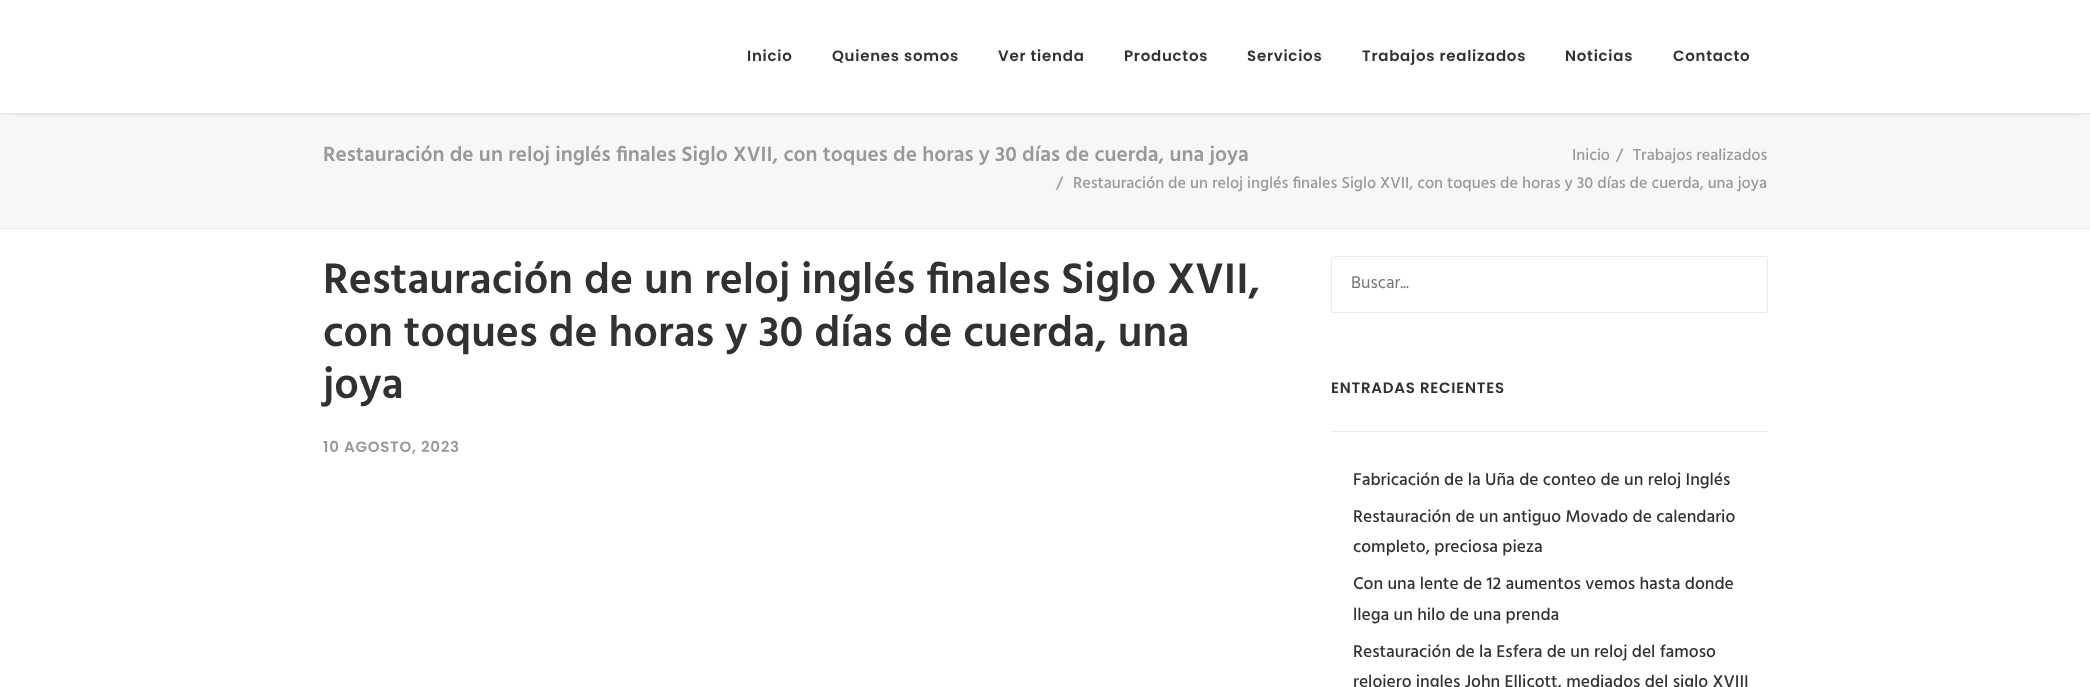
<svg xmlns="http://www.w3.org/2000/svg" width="2090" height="687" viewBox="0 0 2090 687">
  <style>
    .t1 { font: 600 15px Poppins; letter-spacing: 0.75px; fill: #303133; }
    .t2 { font: 600 21.25px Hind; fill: #999; }
    .t3 { font: 500 16.25px Hind; fill: #999; }
    .t4 { font: 600 43.75px Hind; fill: #303133; }
    .t5 { font: 600 15px Poppins; letter-spacing: 0.75px; fill: #999; }
    .t6 { font: 17.5px Hind; fill: #757575; }
    .t7 { font: 500 17.5px Hind; fill: #303133; }
  </style>
  <rect width="100%" height="100%" fill="#f7f7f7"/>
  <rect x="0" y="114" width="2090" height="1" fill="#eaeaea"/>
  <rect x="13" y="18" width="2065" height="88" fill="#00000099" filter="blur(6px)"/>
  <rect x="0" y="0" width="2090" height="113" fill="#fff"/>
  <rect x="0" y="113" width="2090" height="1" fill="#eaeaea"/>
  <text x="747" y="61" class="t1">Inicio</text>
  <text x="832" y="61" class="t1">Quienes somos</text>
  <text x="998" y="61" class="t1">Ver tienda</text>
  <text x="1124" y="61" class="t1">Productos</text>
  <text x="1247" y="61" class="t1">Servicios</text>
  <text x="1362" y="61" class="t1">Trabajos realizados</text>
  <text x="1565" y="61" class="t1">Noticias</text>
  <text x="1673" y="61" class="t1">Contacto</text>
  <rect x="0" y="228" width="2090" height="1" fill="#eaeaea"/>
  <text x="323" y="161" class="t2">Restauración de un reloj inglés finales Siglo XVII, con toques de horas y 30 días de cuerda, una joya</text>
  <text x="1572" y="160" class="t3">Inicio</text>
  <text x="1616" y="160" class="t3">/</text>
  <text x="1633" y="160" class="t3">Trabajos realizados</text>
  <text x="1056" y="188" class="t3">/</text>
  <text x="1073" y="188" class="t3">Restauración de un reloj inglés finales Siglo XVII, con toques de horas y 30 días de cuerda, una joya</text>
  <rect x="0" y="229" width="2090" height="458" fill="#fff"/>
  <text x="323" y="293" class="t4">Restauración de un reloj inglés finales Siglo XVII,</text>
  <text x="323" y="346" class="t4">con toques de horas y 30 días de cuerda, una</text>
  <text x="323" y="398" class="t4">joya</text>
  <text x="323" y="452" class="t5">10 AGOSTO, 2023</text>
  <path d="M1334 260H1765L1766 261V258H1334C1333 258 1333 260 1333 260Z" fill="#f9f9f9"/>
  <rect x="1331.5" y="256.5" width="436" height="56" rx="2" fill="none" stroke="#eaeaea"/>
  <text x="1351" y="288" class="t6">Buscar...</text>
  <rect x="1331" y="431" width="437" height="1" fill="#eaeaea"/>
  <text x="1331" y="393" class="t1">ENTRADAS RECIENTES</text>
  <text x="1353" y="485" class="t7">Fabricación de la Uña de conteo de un reloj Inglés</text>
  <text x="1353" y="522" class="t7">Restauración de un antiguo Movado de calendario</text>
  <text x="1353" y="552" class="t7">completo, preciosa pieza</text>
  <text x="1353" y="589" class="t7">Con una lente de 12 aumentos vemos hasta donde</text>
  <text x="1353" y="620" class="t7">llega un hilo de una prenda</text>
  <text x="1353" y="657" class="t7">Restauración de la Esfera de un reloj del famoso</text>
  <text x="1353" y="687" class="t7">relojero ingles John Ellicott, mediados del siglo XVIII</text>
</svg>
